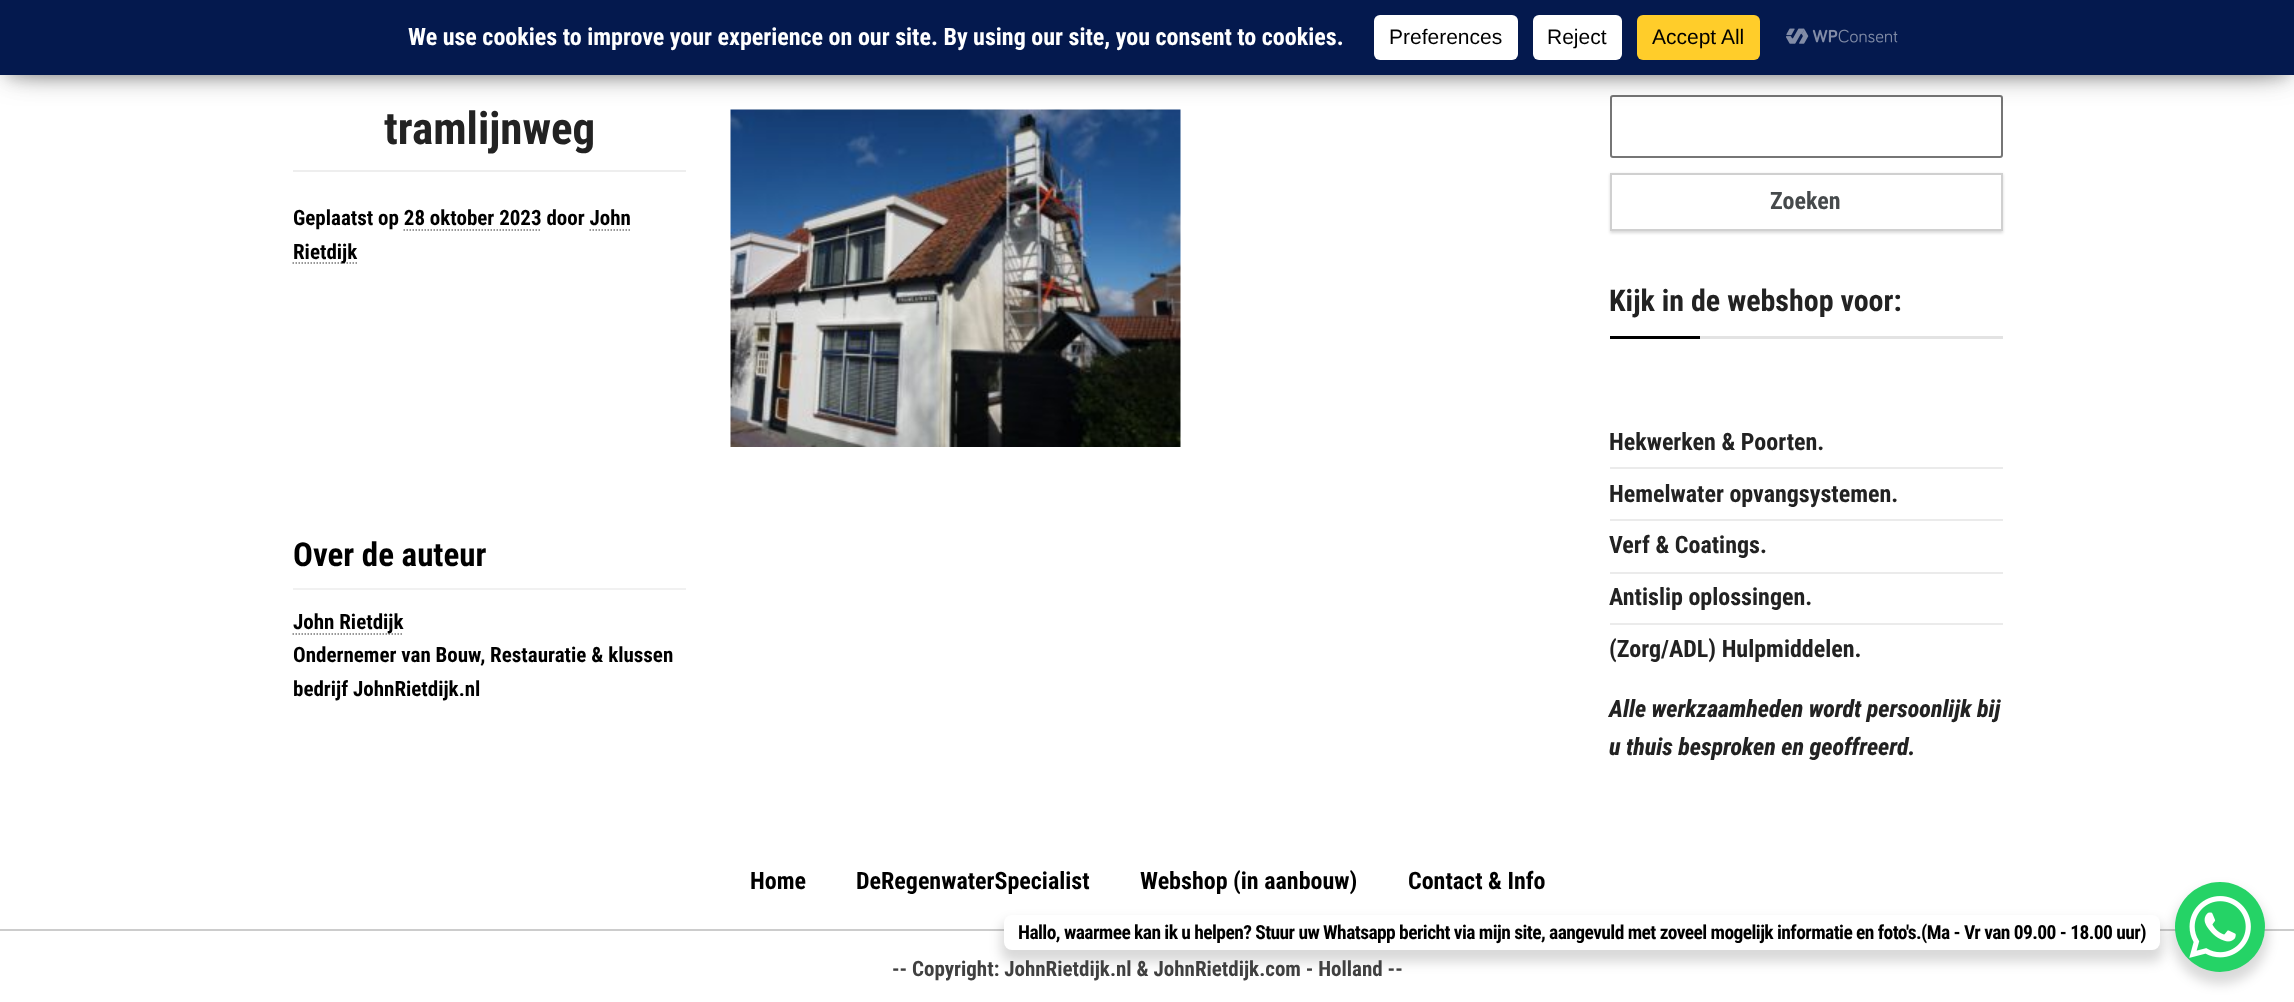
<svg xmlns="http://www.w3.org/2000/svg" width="2294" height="1002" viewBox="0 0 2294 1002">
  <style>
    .t1 { font: bold 24px Roboto Condensed; fill: #fff; }
    .t2 { font: 21px Liberation Sans; fill: #000; }
    .t3 { font: bold 45px Roboto Condensed; fill: #222; }
    .t4 { font: bold 21px Roboto Condensed; fill: #000; }
    .t5 { font: bold 33px Roboto Condensed; fill: #000; }
    .t6 { font: bold 24px Roboto Condensed; fill: #464a4c; }
    .t7 { font: bold 30px Roboto Condensed; fill: #222; }
    .t8 { font: bold 24px Roboto Condensed; fill: #222; }
    .t9 { font: italic 800 24px Roboto Condensed; fill: #222; }
    .t10 { font: bold 24px Roboto Condensed; fill: #000; }
    .t11 { font: bold 19.5px Roboto Condensed; letter-spacing: -0.58px; fill: #000; }
    .t12 { font: bold 21px Roboto Condensed; fill: #404040; }
  </style>
  <rect width="100%" height="100%" fill="#fff"/>
  <rect x="1611" y="96" width="391" height="61" rx="2" fill="none" stroke="#767676" stroke-width="2"/>
  <rect x="8" y="2" width="2280" height="75" fill="#00000033" filter="blur(7.5px)"/>
  <path d="M730.5 289H1180.5" fill="none" stroke="#777" stroke-width="1.5" stroke-dasharray="1.5 1.5"/>
  <image x="730" y="109" width="451" height="338" href="images/2.png"/>
  <rect x="0" y="-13" width="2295" height="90" fill="#0000001f" filter="blur(15px)"/>
  <rect x="18" y="15" width="2259" height="54" fill="#0000006b" filter="blur(15px)"/>
  <rect x="0" y="0" width="2294" height="75" fill="#04194e"/>
  <text x="408" y="45" class="t1">We use cookies to improve your experience on our site. By using our site, you consent to cookies.</text>
  <rect x="1374" y="15" width="144" height="45" rx="6" fill="#fff"/>
  <text x="1389" y="44" class="t2">Preferences</text>
  <rect x="1533" y="15" width="89" height="45" rx="6" fill="#fff"/>
  <text x="1547" y="44" class="t2">Reject</text>
  <rect x="1637" y="15" width="123" height="45" rx="6" fill="#ffcd2a"/>
  <text x="1652" y="44" class="t2">Accept All</text>
  <image x="1786" y="28" width="112" height="16" href="images/1.png"/>
  <rect x="293" y="170" width="393" height="2" fill="#eee"/>
  <text x="384" y="144" class="t3">tramlijnweg</text>
  <text x="293" y="225" class="t4">Geplaatst op 28 oktober 2023 door John</text>
  <path d="M403.5 230H541.5" fill="none" stroke="#777" stroke-width="1.5" stroke-dasharray="1.5 1.5"/>
  <path d="M292.5 263H357" fill="none" stroke="#777" stroke-width="1.5" stroke-dasharray="1.5 1.5"/>
  <text x="293" y="259" class="t4">Rietdijk</text>
  <path d="M589.5 230H630" fill="none" stroke="#777" stroke-width="1.5" stroke-dasharray="1.5 1.5"/>
  <rect x="293" y="588" width="393" height="2" fill="#f1f1f1"/>
  <text x="293" y="566" class="t5">Over de auteur</text>
  <path d="M292.5 634H403.5" fill="none" stroke="#777" stroke-width="1.5" stroke-dasharray="1.5 1.5"/>
  <text x="293" y="629" class="t4">John Rietdijk</text>
  <text x="293" y="662" class="t4">Ondernemer van Bouw, Restauratie &amp; klussen</text>
  <text x="293" y="696" class="t4">bedrijf JohnRietdijk.nl</text>
  <rect x="1610" y="174" width="393" height="59" fill="#00000026" filter="blur(1.5px)"/>
  <rect x="1611" y="174" width="391" height="56" fill="#fff" stroke="#d0d0d0" stroke-width="2"/>
  <text x="1770" y="209" class="t6">Zoeken</text>
  <rect x="1700" y="336" width="303" height="3" fill="#e3e3e3"/>
  <text x="1609" y="311" class="t7">Kijk in de webshop voor:</text>
  <rect x="1610" y="336" width="90" height="3" fill="#000"/>
  <rect x="1610" y="467" width="393" height="2" fill="#ebebeb"/>
  <text x="1609" y="450" class="t8">Hekwerken &amp; Poorten.</text>
  <rect x="1610" y="519" width="393" height="2" fill="#ebebeb"/>
  <text x="1609" y="502" class="t8">Hemelwater opvangsystemen.</text>
  <rect x="1610" y="572" width="393" height="2" fill="#ebebeb"/>
  <text x="1609" y="553" class="t8">Verf &amp; Coatings.</text>
  <rect x="1610" y="623" width="393" height="2" fill="#ebebeb"/>
  <text x="1609" y="605" class="t8">Antislip oplossingen.</text>
  <text x="1609" y="657" class="t8">(Zorg/ADL) Hulpmiddelen.</text>
  <text x="1609" y="717" class="t9">Alle werkzaamheden wordt persoonlijk bij</text>
  <text x="1609" y="755" class="t9">u thuis besproken en geoffreerd.</text>
  <text x="750" y="889" class="t10">Home</text>
  <text x="856" y="889" class="t10">DeRegenwaterSpecialist</text>
  <text x="1140" y="889" class="t10">Webshop (in aanbouw)</text>
  <text x="1408" y="889" class="t10">Contact &amp; Info</text>
  <rect x="0" y="929" width="2294" height="2" fill="#ccc"/>
  <rect x="2172" y="888" width="96" height="96" rx="48" fill="#00000026" filter="blur(6px)"/>
  <circle cx="2220" cy="927" r="45" fill="#25d366"/>
  <rect x="1001" y="921" width="1162" height="41" rx="11" fill="#00000026" filter="blur(6px)"/>
  <rect x="1004" y="915" width="1156" height="35" rx="8" fill="#fff"/>
  <text x="1018" y="939" class="t11">Hallo, waarmee kan ik u helpen? Stuur uw Whatsapp bericht via mijn site, aangevuld met zoveel mogelijk informatie en foto's.(Ma - Vr van 09.00 - 18.00 uur)</text>
  <image x="2189" y="896" width="62" height="62" href="images/3.png"/>
  <text x="892" y="976" class="t12">-- Copyright: JohnRietdijk.nl &amp; JohnRietdijk.com - Holland --</text>
</svg>
